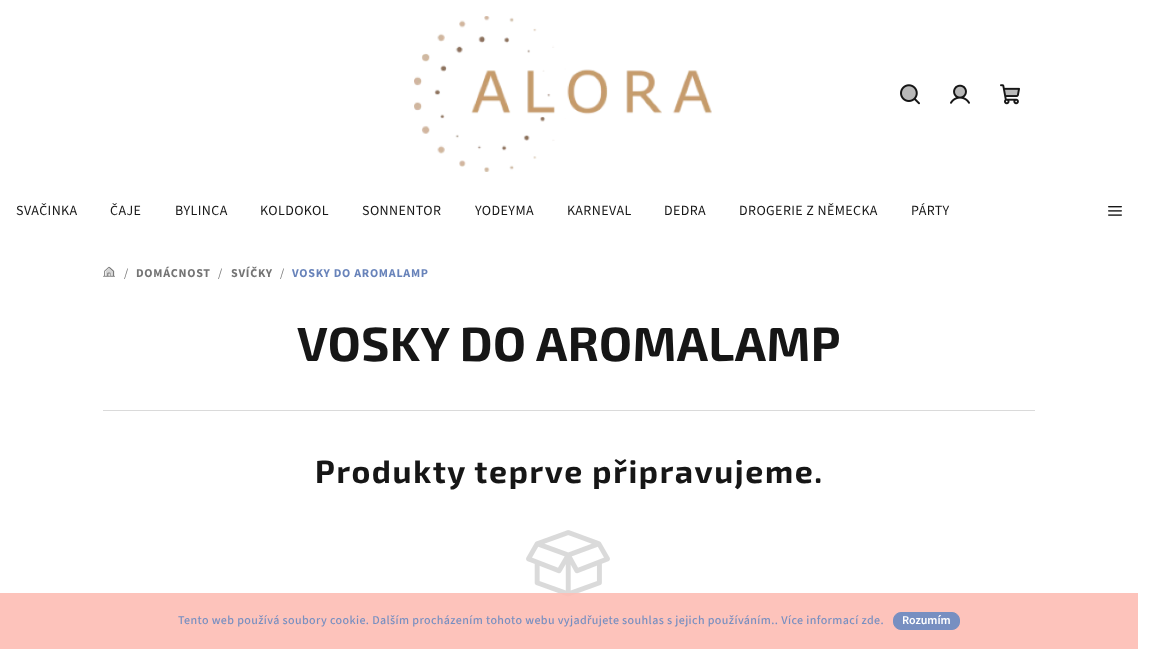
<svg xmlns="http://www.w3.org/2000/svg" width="1153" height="649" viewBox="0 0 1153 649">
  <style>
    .t1 { font: 14px 'Source Sans 3'; letter-spacing: 0.4px; fill: #161616; }
    .t2 { font: 12px 'Source Sans 3'; letter-spacing: 0.75px; fill: #747474; }
    .t3 { font: bold 12px 'Source Sans 3'; letter-spacing: 0.75px; fill: #747474; }
    .t4 { font: bold 12px 'Source Sans 3'; letter-spacing: 0.75px; fill: #6883ba; }
    .t5 { font: bold 48px 'Exo 2'; letter-spacing: 0.4px; fill: #161616; }
    .t6 { font: bold 32px 'Exo 2'; letter-spacing: 1.6px; fill: #161616; }
    .t7 { font: 500 12px 'Source Sans 3'; letter-spacing: 0.4px; fill: #778fc1; }
    .t8 { font: 600 12px 'Source Sans 3'; fill: #fff; }
  </style>
  <rect width="100%" height="100%" fill="#fff"/>
  <image x="414" y="16" width="298" height="156" href="images/1.png"/>
  <image x="900" y="84" width="20" height="21" href="images/2.png"/>
  <path d="M909 101C919 101 919 85 909 85C898.5 85 898.5 101 909 101Z" fill="#1616164d"/>
  <image x="950" y="84" width="20" height="20" href="images/3.png"/>
  <rect x="955" y="86" width="10" height="11" fill="#1616164d"/>
  <image x="1000" y="84" width="20" height="21" href="images/4.png"/>
  <rect x="1005" y="89" width="13" height="7" fill="#1616164d"/>
  <text x="16" y="215" class="t1">SVAČINKA</text>
  <text x="110" y="215" class="t1">ČAJE</text>
  <text x="175" y="215" class="t1">BYLINCA</text>
  <text x="260" y="215" class="t1">KOLDOKOL</text>
  <text x="362" y="215" class="t1">SONNENTOR</text>
  <text x="475" y="215" class="t1">YODEYMA</text>
  <text x="567" y="215" class="t1">KARNEVAL</text>
  <text x="664" y="215" class="t1">DEDRA</text>
  <text x="739" y="215" class="t1">DROGERIE Z NĚMECKA</text>
  <text x="911" y="215" class="t1">PÁRTY</text>
  <image x="1108" y="206" width="14" height="10" href="images/5.png"/>
  <image x="103" y="266" width="12" height="11" href="images/6.png"/>
  <image x="105" y="267" width="10" height="10" href="images/7.png"/>
  <text x="124" y="277" class="t2">/</text>
  <text x="136" y="277" class="t3">DOMÁCNOST</text>
  <text x="218" y="277" class="t2">/</text>
  <text x="231" y="277" class="t3">SVÍČKY</text>
  <text x="280" y="277" class="t2">/</text>
  <text x="292" y="277" class="t4">VOSKY DO AROMALAMP</text>
  <rect x="103" y="410" width="932" height="1" fill="#dadada"/>
  <text x="297" y="361" class="t5">VOSKY DO AROMALAMP</text>
  <text x="315" y="483" class="t6">Produkty teprve připravujeme.</text>
  <image x="526" y="530" width="84" height="67" href="images/8.png"/>
  <rect x="0" y="593" width="1138" height="56" fill="#fdbcb4e6"/>
  <text x="178" y="624" class="t7">Tento web používá soubory cookie. Dalším procházením tohoto webu vyjadřujete souhlas s jejich používáním.. Více informací zde.</text>
  <rect x="893.5" y="612.5" width="66" height="17" rx="7.5" fill="#778fc1" stroke="#778fc1"/>
  <text x="902" y="624" class="t8">Rozumím</text>
</svg>
